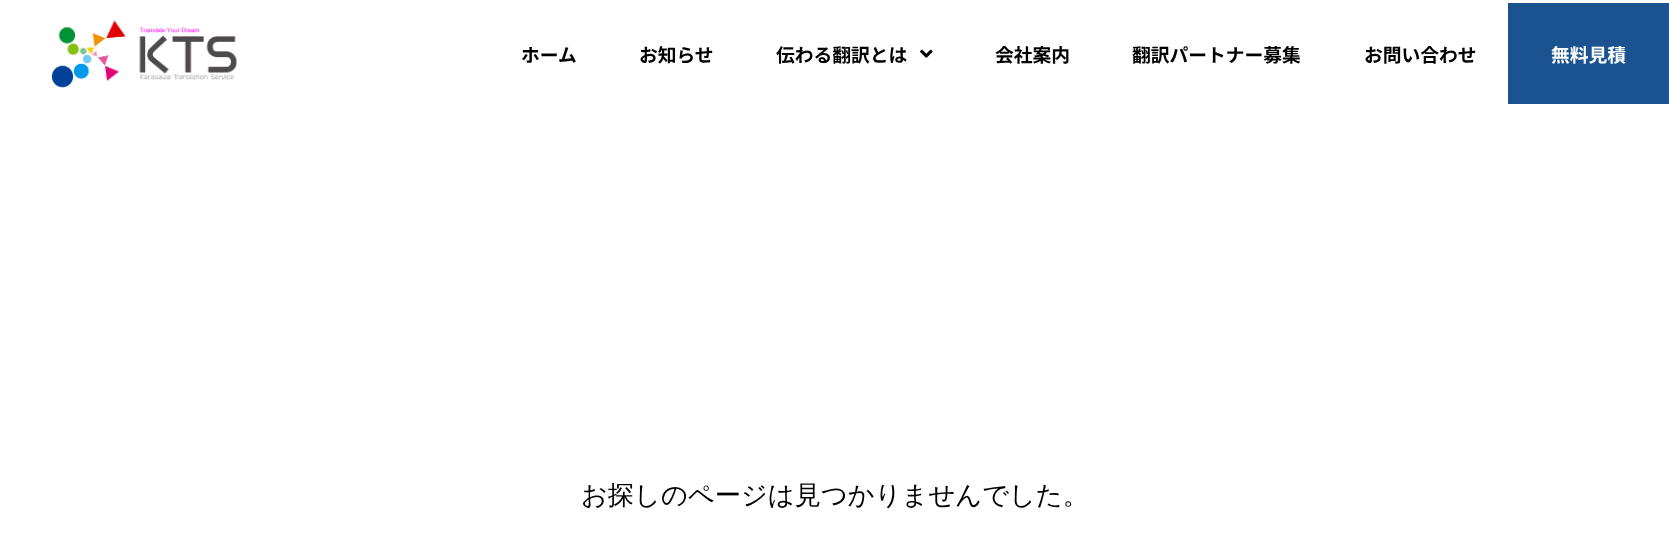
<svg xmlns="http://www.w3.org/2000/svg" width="1669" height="549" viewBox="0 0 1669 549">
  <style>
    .t1 { font: bold 18.75px Noto Sans JP; fill: #000; }
    .t2 { font: bold 18.75px Noto Sans JP; fill: #fff; }
    .t3 { font: 500 26.25px WenQuanYi Zen Hei; fill: #000; }
  </style>
  <rect width="100%" height="100%" fill="#fff"/>
  <image x="51" y="20" width="186" height="68" href="images/1.png"/>
  <text x="521" y="62" class="t1">ホーム</text>
  <text x="639" y="62" class="t1">お知らせ</text>
  <text x="776" y="62" class="t1">伝わる翻訳とは</text>
  <image x="920" y="49" width="13" height="9" href="images/2.png"/>
  <text x="995" y="62" class="t1">会社案内</text>
  <text x="1132" y="62" class="t1">翻訳パートナー募集</text>
  <text x="1364" y="62" class="t1">お問い合わせ</text>
  <rect x="1508" y="3" width="161" height="101" fill="#1b5390"/>
  <text x="1551" y="62" class="t2">無料見積</text>
  <text x="581" y="504" class="t3">お探しのページは見つかりませんでした。</text>
</svg>
